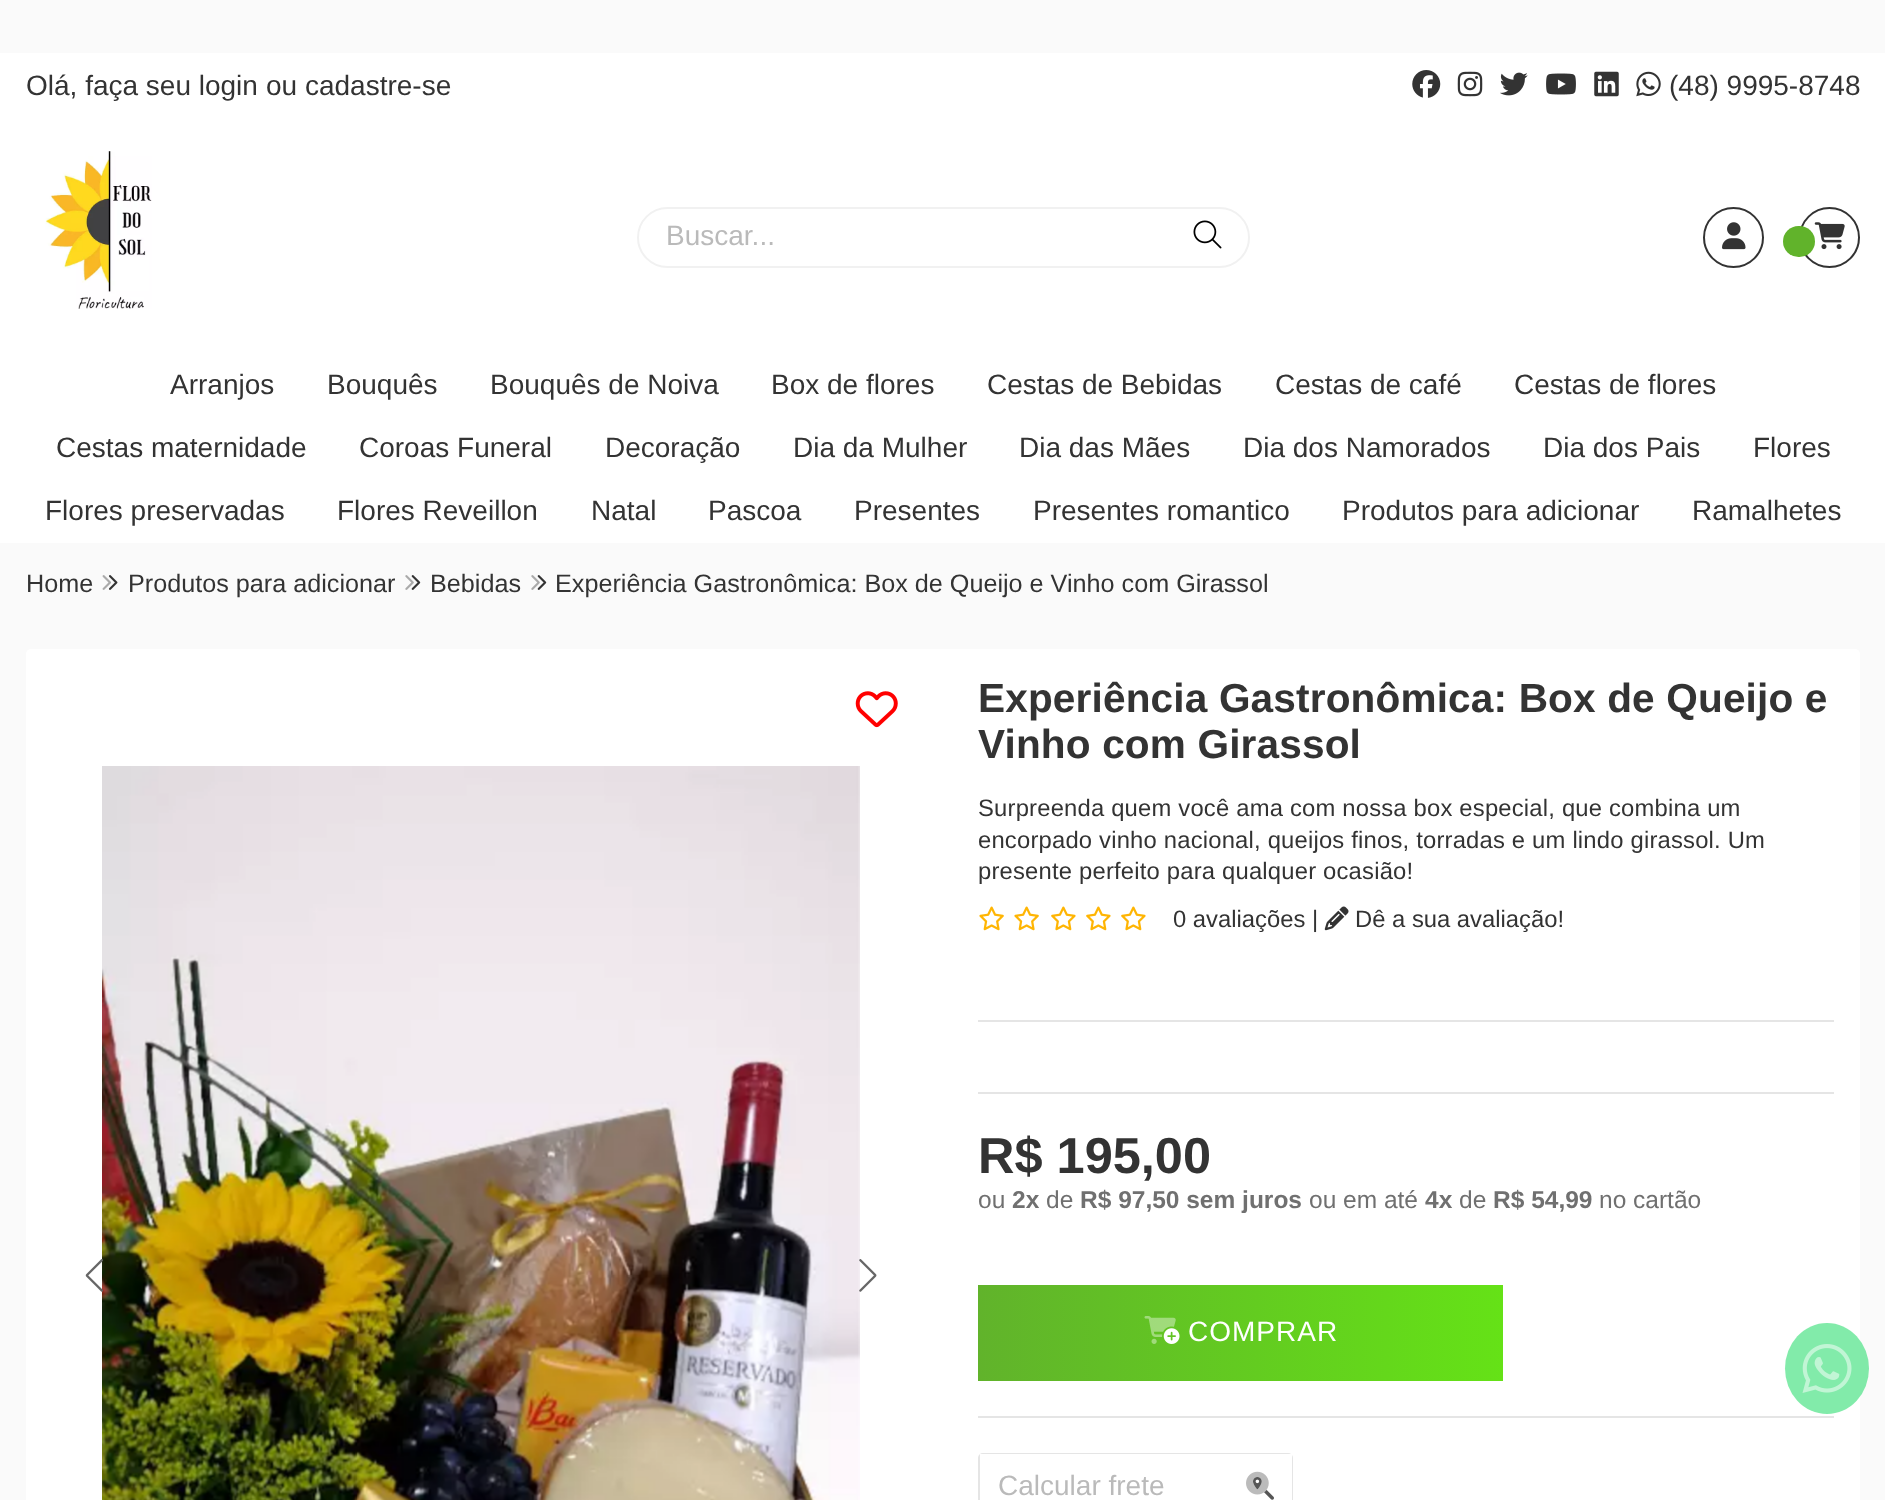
<svg xmlns="http://www.w3.org/2000/svg" width="1885" height="1500" viewBox="0 0 1885 1500">
  <style>
    .t1 { font: 28px Liberation Sans; fill: #333; }
    .t2 { font: 28px Liberation Sans; fill: #bababa; }
    .t3 { font: 25.2px Liberation Sans; fill: #333; }
    .t4 { font: bold 40.6px Liberation Sans; letter-spacing: 0.15px; fill: #333; }
    .t5 { font: 23.8px Liberation Sans; letter-spacing: 0.2px; fill: #333; }
    .t6 { font: 23.8px Liberation Sans; fill: #333; }
    .t7 { font: bold 50.5px Liberation Sans; fill: #333; }
    .t8 { font: 24.5px Liberation Sans; fill: #707070; }
    .t9 { font: bold 24.5px Liberation Sans; fill: #707070; }
    .t10 { font: 28px Liberation Sans; letter-spacing: 1px; fill: #fff; }
  </style>
  <defs>
    <linearGradient id="g1" gradientUnits="userSpaceOnUse" x1="978" y1="1333" x2="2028" y2="1333"><stop offset="0" stop-color="#61b32b"/><stop offset="0.51" stop-color="#65e316"/><stop offset="1" stop-color="#61b32b"/></linearGradient>
  </defs>
  <rect width="100%" height="100%" fill="#fafafa"/>
  <rect x="0" y="53" width="1885" height="490" fill="#fff"/>
  <text x="26" y="95" class="t1">Olá, faça seu login</text>
  <text x="266" y="95" class="t1">ou cadastre-se</text>
  <image x="1412" y="70" width="29" height="28" href="images/1.png"/>
  <image x="1457" y="71" width="26" height="26" href="images/2.png"/>
  <image x="1500" y="72" width="28" height="24" href="images/3.png"/>
  <image x="1546" y="73" width="30" height="22" href="images/4.png"/>
  <image x="1594" y="71" width="25" height="26" href="images/5.png"/>
  <image x="1636" y="71" width="25" height="26" href="images/6.png"/>
  <text x="1669" y="95" class="t1">(48) 9995-8748</text>
  <image x="45" y="151" width="107" height="158" href="images/7.png"/>
  <rect x="638" y="208" width="611" height="59" rx="29.5" fill="none" stroke="#f1f1f1" stroke-width="2"/>
  <text x="666" y="245" class="t2">Buscar...</text>
  <image x="1193" y="220" width="29" height="29" href="images/8.png"/>
  <circle cx="1733.5" cy="237.5" r="29.5" fill="none" stroke="#333" stroke-width="2"/>
  <image x="1722" y="222" width="24" height="28" href="images/9.png"/>
  <circle cx="1829.5" cy="237.5" r="29.5" fill="none" stroke="#333" stroke-width="2"/>
  <image x="1814" y="222" width="31" height="28" href="images/10.png"/>
  <rect x="1783" y="226" width="32" height="31" rx="15.5" fill="#61b32b"/>
  <text x="170" y="394" class="t1">Arranjos</text>
  <text x="327" y="394" class="t1">Bouquês</text>
  <text x="490" y="394" class="t1">Bouquês de Noiva</text>
  <text x="771" y="394" class="t1">Box de flores</text>
  <text x="987" y="394" class="t1">Cestas de Bebidas</text>
  <text x="1275" y="394" class="t1">Cestas de café</text>
  <text x="1514" y="394" class="t1">Cestas de flores</text>
  <text x="56" y="457" class="t1">Cestas maternidade</text>
  <text x="359" y="457" class="t1">Coroas Funeral</text>
  <text x="605" y="457" class="t1">Decoração</text>
  <text x="793" y="457" class="t1">Dia da Mulher</text>
  <text x="1019" y="457" class="t1">Dia das Mães</text>
  <text x="1243" y="457" class="t1">Dia dos Namorados</text>
  <text x="1543" y="457" class="t1">Dia dos Pais</text>
  <text x="1753" y="457" class="t1">Flores</text>
  <text x="45" y="520" class="t1">Flores preservadas</text>
  <text x="337" y="520" class="t1">Flores Reveillon</text>
  <text x="591" y="520" class="t1">Natal</text>
  <text x="708" y="520" class="t1">Pascoa</text>
  <text x="854" y="520" class="t1">Presentes</text>
  <text x="1033" y="520" class="t1">Presentes romantico</text>
  <text x="1342" y="520" class="t1">Produtos para adicionar</text>
  <text x="1692" y="520" class="t1">Ramalhetes</text>
  <text x="26" y="592" class="t3">Home</text>
  <image x="102" y="575" width="16" height="15" href="images/11.png"/>
  <text x="128" y="592" class="t3">Produtos para adicionar</text>
  <image x="405" y="575" width="16" height="15" href="images/12.png"/>
  <text x="430" y="592" class="t3">Bebidas</text>
  <image x="531" y="575" width="16" height="15" href="images/12.png"/>
  <text x="555" y="592" class="t3">Experiência Gastronômica: Box de Queijo e Vinho com Girassol</text>
  <rect x="26" y="649" width="1834" height="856" rx="5" fill="#fff"/>
  <image x="855" y="691" width="43" height="37" href="images/13.png"/>
  <image x="102" y="766" width="758" height="734" href="images/15.png"/>
  <image x="85" y="1259" width="18" height="33" href="images/14.png"/>
  <image x="859" y="1259" width="18" height="33" href="images/16.png"/>
  <rect x="978" y="1020" width="856" height="2" fill="#e5e5e5"/>
  <text x="978" y="712" class="t4">Experiência Gastronômica: Box de Queijo e</text>
  <text x="978" y="758" class="t4">Vinho com Girassol</text>
  <text x="978" y="816" class="t5">Surpreenda quem você ama com nossa box especial, que combina um</text>
  <text x="978" y="848" class="t5">encorpado vinho nacional, queijos finos, torradas e um lindo girassol. Um</text>
  <text x="978" y="879" class="t5">presente perfeito para qualquer ocasião!</text>
  <image x="979" y="906" width="25" height="25" href="images/17.png"/>
  <image x="1014" y="906" width="25" height="25" href="images/17.png"/>
  <image x="1051" y="906" width="25" height="25" href="images/18.png"/>
  <image x="1086" y="906" width="25" height="25" href="images/18.png"/>
  <image x="1121" y="906" width="25" height="25" href="images/18.png"/>
  <text x="1173" y="927" class="t6">0 avaliações |</text>
  <image x="1324" y="906" width="25" height="25" href="images/19.png"/>
  <text x="1355" y="927" class="t6">Dê a sua avaliação!</text>
  <rect x="978" y="1092" width="856" height="2" fill="#e5e5e5"/>
  <text x="978" y="1173" class="t7">R$ 195,00</text>
  <text x="978" y="1208" class="t8">ou</text>
  <text x="1012" y="1208" class="t9">2x</text>
  <text x="1046" y="1208" class="t8">de</text>
  <text x="1080" y="1208" class="t9">R$ 97,50 sem juros</text>
  <text x="1309" y="1208" class="t8">ou em até</text>
  <text x="1425" y="1208" class="t9">4x</text>
  <text x="1459" y="1208" class="t8">de</text>
  <text x="1493" y="1208" class="t9">R$ 54,99</text>
  <text x="1599" y="1208" class="t8">no cartão</text>
  <rect x="978" y="1416" width="856" height="2" fill="#e5e5e5"/>
  <rect x="978" y="1285" width="525" height="96" fill="url(#g1)"/>
  <image x="1144" y="1316" width="36" height="28" href="images/20.png"/>
  <text x="1188" y="1341" class="t10">COMPRAR</text>
  <rect x="979" y="1454" width="313" height="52" rx="4" fill="none" stroke="#e5e5e5" stroke-width="2"/>
  <rect x="980" y="1454" width="312" height="46" fill="#fff"/>
  <text x="998" y="1495" class="t2">Calcular frete</text>
  <image x="1246" y="1471" width="28" height="29" href="images/21.png"/>
  <ellipse cx="1827" cy="1368.5" rx="42" ry="45.5" fill="#06d75580"/>
  <image x="1802" y="1344" width="50" height="49" href="images/22.png"/>
</svg>
